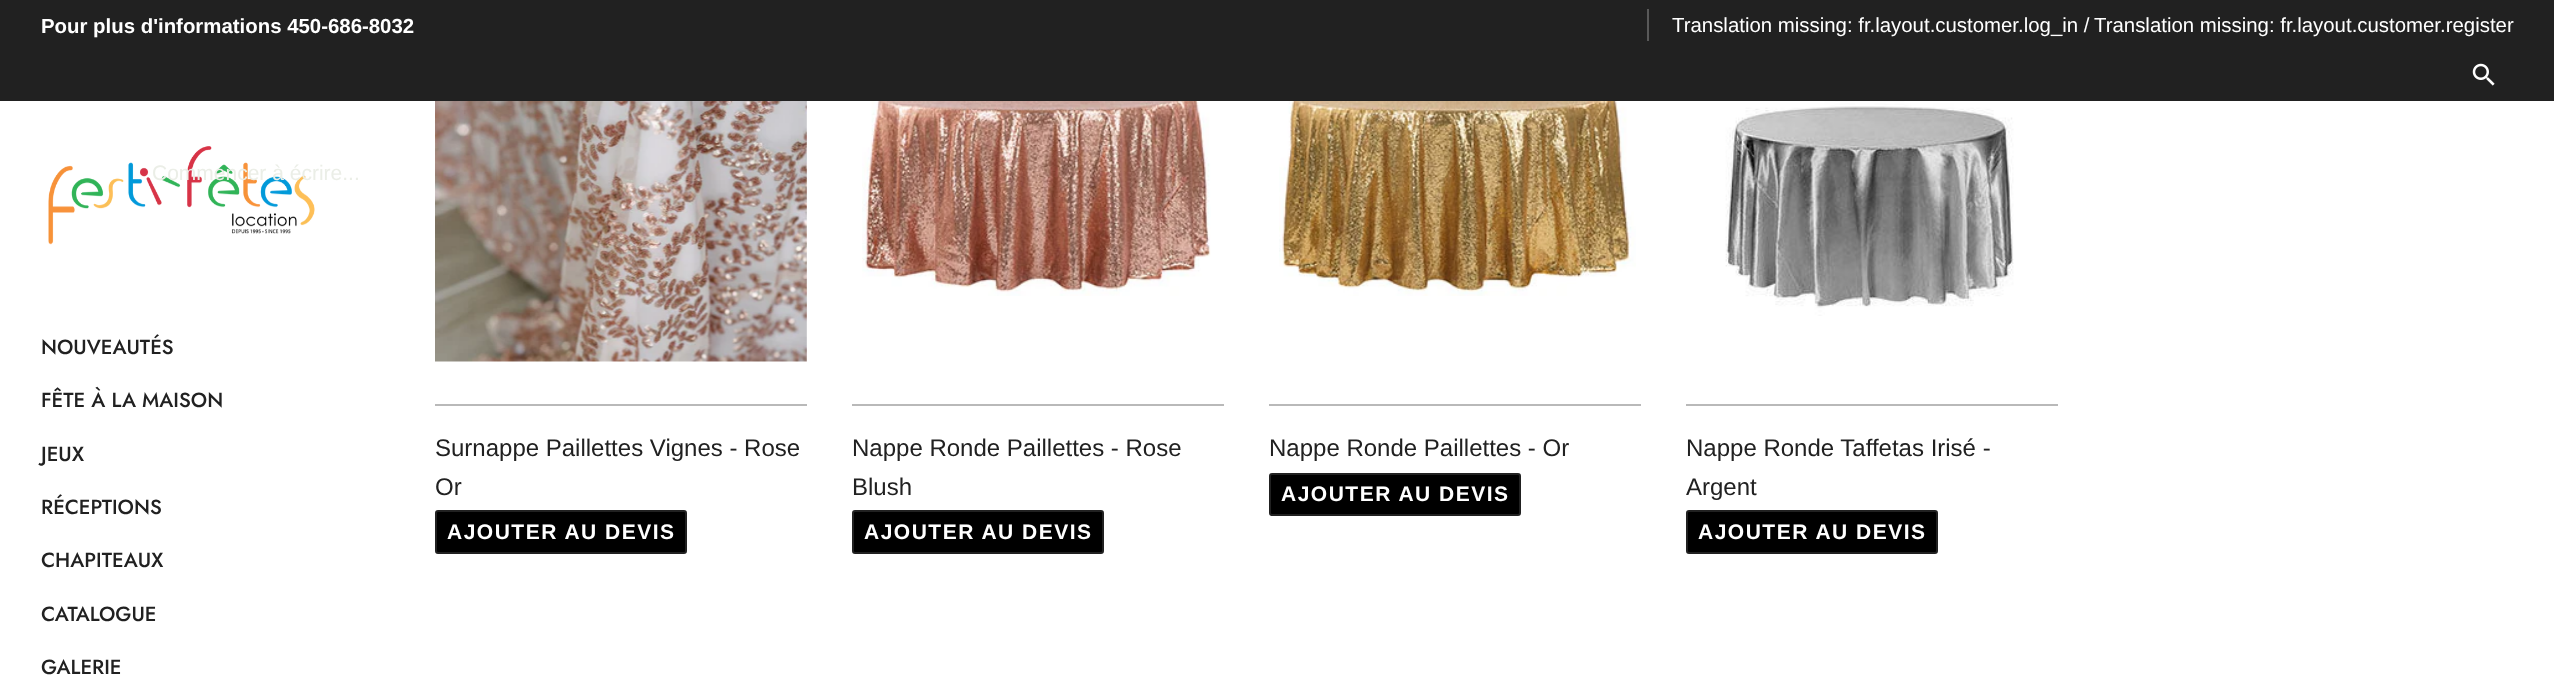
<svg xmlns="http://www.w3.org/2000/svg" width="2554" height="692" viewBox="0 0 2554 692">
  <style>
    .t1 { font: bold 20.4px Arimo; fill: #fff; }
    .t2 { font: 20.4px Arimo; fill: #fff; }
    .t3 { font: 21px Arimo; fill: #ebeee7; }
    .t4 { font: 500 20.4px Jost; fill: #212121; }
    .t5 { font: 24px Arimo; fill: #212121; }
    .t6 { font: bold 21px Arimo; letter-spacing: 1.5px; fill: #fff; }
  </style>
  <rect width="100%" height="100%" fill="#fff"/>
  <rect x="0" y="0" width="2554" height="101" fill="#212121"/>
  <text x="41" y="33" class="t1">Pour plus d'informations 450-686-8032</text>
  <rect x="1647" y="9" width="2" height="32" fill="#595959"/>
  <text x="1672" y="32" class="t2">Translation missing: fr.layout.customer.log_in /</text>
  <text x="2094" y="32" class="t2">Translation missing: fr.layout.customer.register</text>
  <image x="2472" y="63" width="23" height="23" href="images/1.png"/>
  <image x="48" y="146" width="267" height="99" href="images/2.png"/>
  <text x="152" y="180" class="t3">Commencer à écrire...</text>
  <text x="41" y="354" class="t4">NOUVEAUTÉS</text>
  <text x="41" y="407" class="t4">FÊTE À LA MAISON</text>
  <text x="41" y="461" class="t4">JEUX</text>
  <text x="41" y="514" class="t4">RÉCEPTIONS</text>
  <text x="41" y="567" class="t4">CHAPITEAUX</text>
  <text x="41" y="621" class="t4">CATALOGUE</text>
  <text x="41" y="674" class="t4">GALERIE</text>
  <image x="435" y="101" width="372" height="261" href="images/3.png"/>
  <rect x="435" y="404" width="372" height="2" fill="#b9b9b9"/>
  <text x="435" y="456" class="t5">Surnappe Paillettes Vignes - Rose</text>
  <text x="435" y="495" class="t5">Or</text>
  <rect x="436" y="511" width="250" height="42" rx="2" fill="#000" stroke="#212121" stroke-width="2"/>
  <text x="447" y="539" class="t6">AJOUTER AU DEVIS</text>
  <image x="862" y="101" width="349" height="195" href="images/4.png"/>
  <rect x="852" y="404" width="372" height="2" fill="#b9b9b9"/>
  <text x="852" y="456" class="t5">Nappe Ronde Paillettes - Rose</text>
  <text x="852" y="495" class="t5">Blush</text>
  <rect x="853" y="511" width="250" height="42" rx="2" fill="#000" stroke="#212121" stroke-width="2"/>
  <text x="864" y="539" class="t6">AJOUTER AU DEVIS</text>
  <image x="1279" y="101" width="357" height="195" href="images/5.png"/>
  <rect x="1269" y="404" width="372" height="2" fill="#b9b9b9"/>
  <text x="1269" y="456" class="t5">Nappe Ronde Paillettes - Or</text>
  <rect x="1270" y="474" width="250" height="41" rx="2" fill="#000" stroke="#212121" stroke-width="2"/>
  <text x="1281" y="501" class="t6">AJOUTER AU DEVIS</text>
  <image x="1725" y="101" width="289" height="215" href="images/6.png"/>
  <rect x="1686" y="404" width="372" height="2" fill="#b9b9b9"/>
  <text x="1686" y="456" class="t5">Nappe Ronde Taffetas Irisé -</text>
  <text x="1686" y="495" class="t5">Argent</text>
  <rect x="1687" y="511" width="250" height="42" rx="2" fill="#000" stroke="#212121" stroke-width="2"/>
  <text x="1698" y="539" class="t6">AJOUTER AU DEVIS</text>
</svg>
